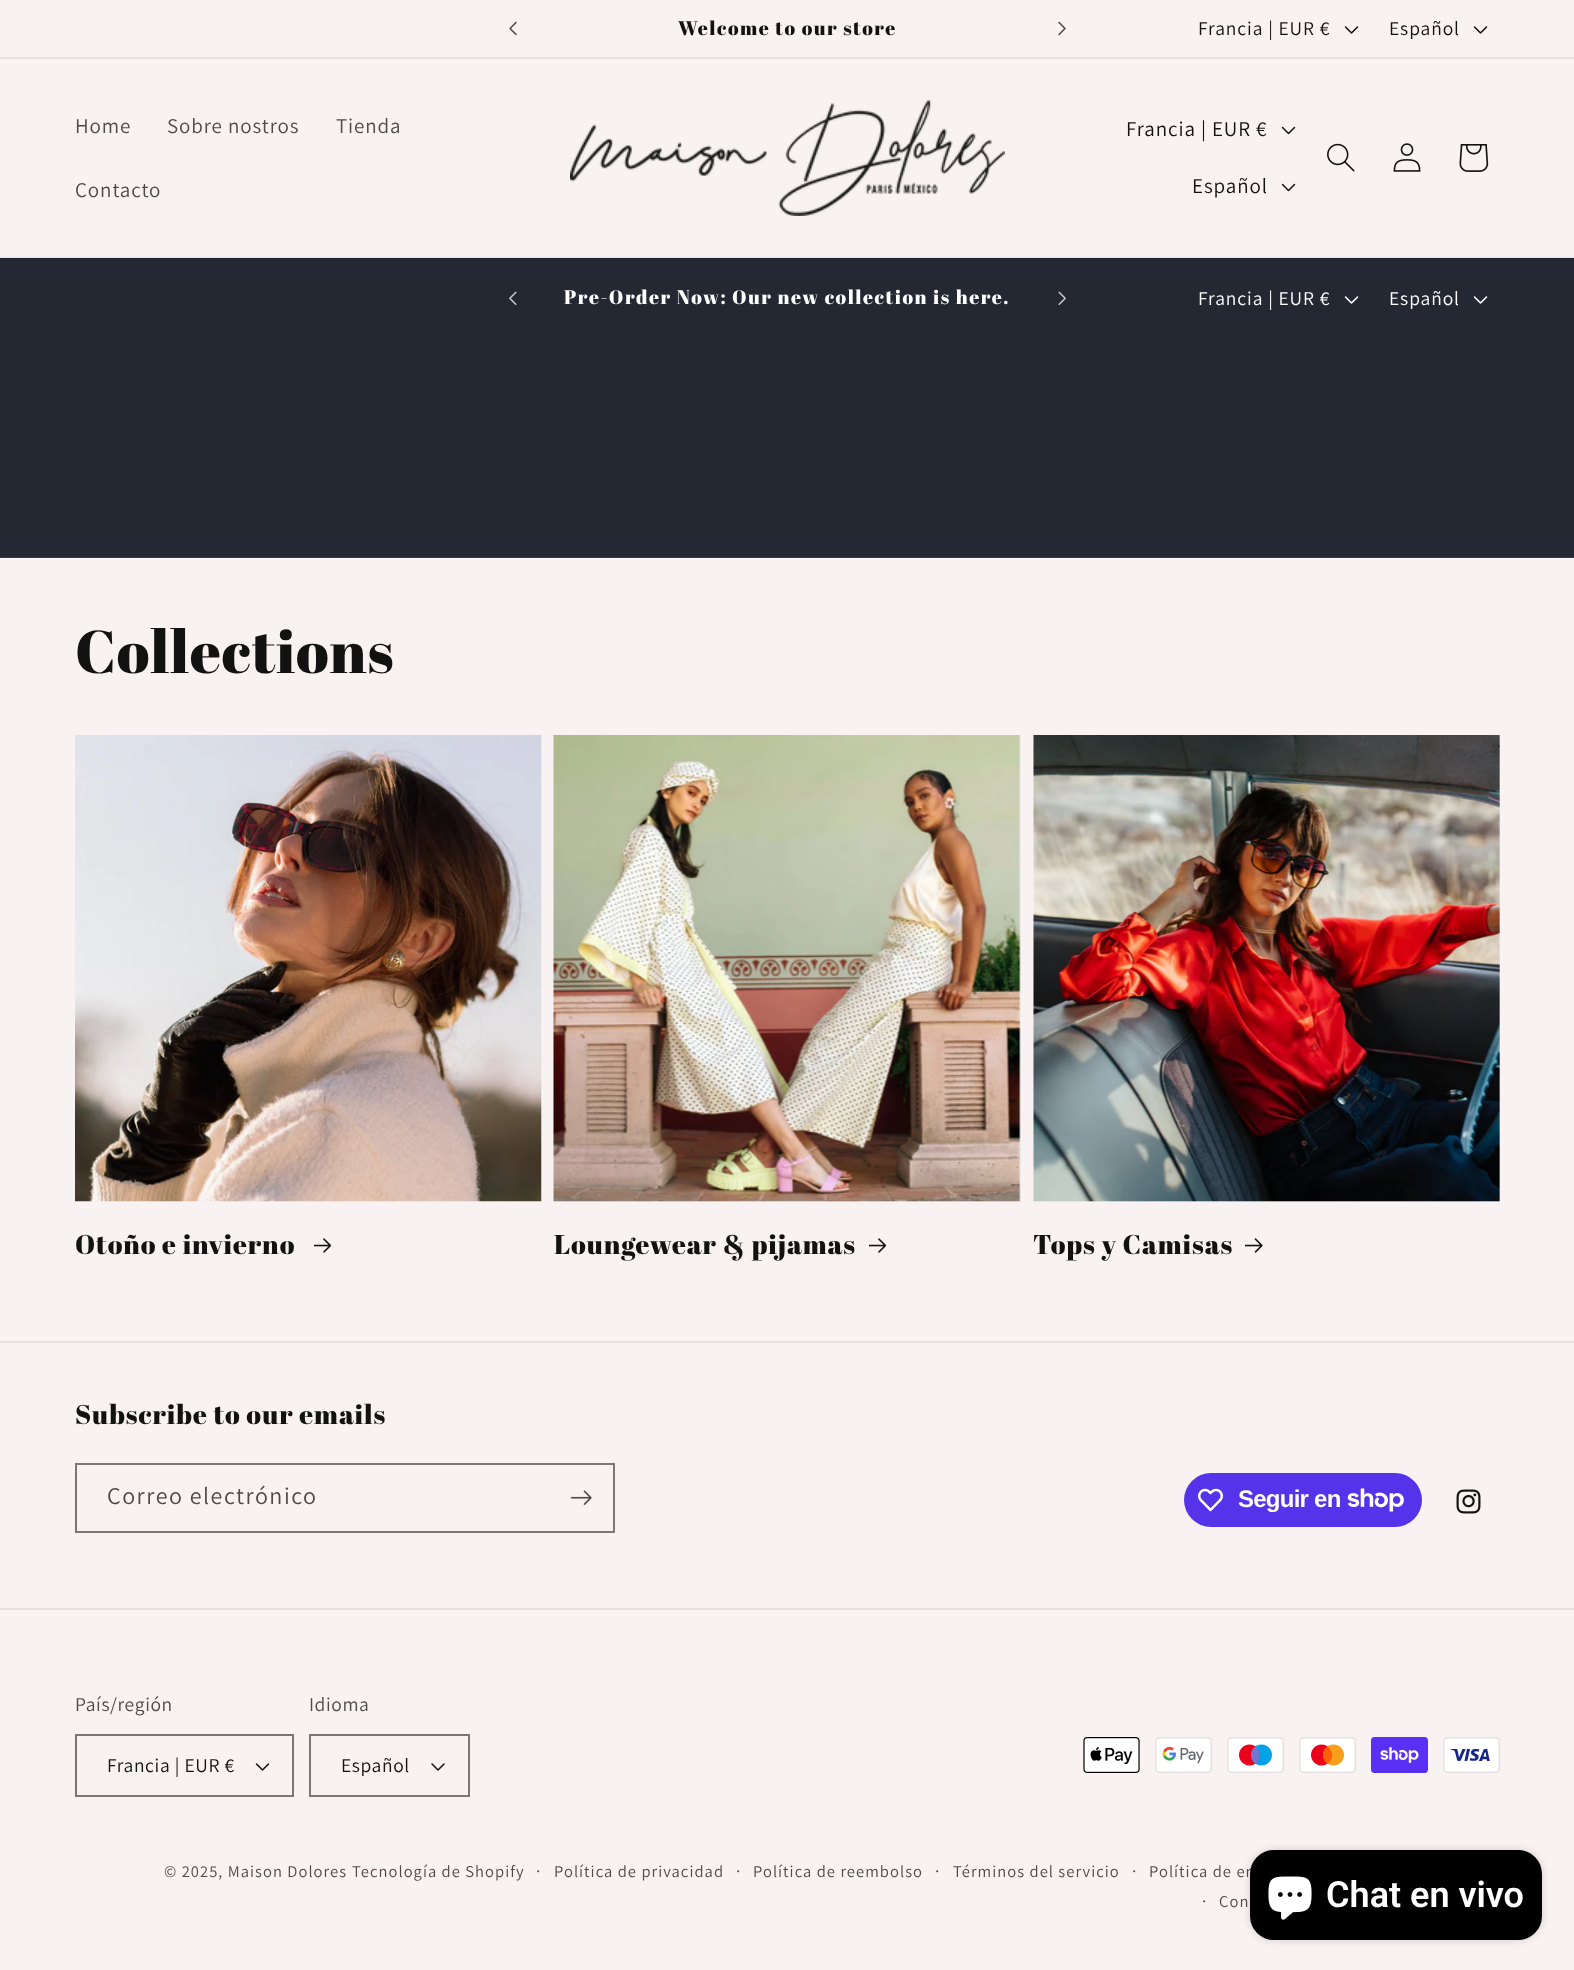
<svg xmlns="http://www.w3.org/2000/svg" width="1574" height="1970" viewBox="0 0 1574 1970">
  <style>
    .t1 { font: 19.5px Abril Fatface; letter-spacing: 1.5px; fill: #121212; }
    .t2 { font: 19.5px Assistant; letter-spacing: 0.9px; fill: #121212; }
    .t3 { font: 21px Assistant; letter-spacing: 0.9px; fill: #4c4a4a; }
    .t4 { font: 21px Assistant; letter-spacing: 0.9px; fill: #121212; }
    .t5 { font: 19.5px Abril Fatface; letter-spacing: 1.5px; fill: #fff; }
    .t6 { font: 19.5px Assistant; letter-spacing: 0.9px; fill: #fff; }
    .t7 { font: 60px Abril Fatface; letter-spacing: 0.9px; fill: #121212; }
    .t8 { font: 27px Abril Fatface; letter-spacing: 0.9px; fill: #121212; }
    .t9 { font: 24px Assistant; letter-spacing: 1.5px; fill: #4c4a4a; }
    .t10 { font: bold 24px Liberation Sans; letter-spacing: -0.75px; fill: #fff; }
    .t11 { font: 19.5px Assistant; letter-spacing: 0.6px; fill: #4c4a4a; }
    .t12 { font: 19.5px Assistant; letter-spacing: 0.6px; fill: #121212; }
    .t13 { font: 16.5px Assistant; letter-spacing: 1.05px; fill: #4c4a4a; }
    .t14 { font: 18px Assistant; letter-spacing: 1.05px; fill: #4c4a4a; }
    .t15 { font: 600 36px Roboto; fill: #fff; }
  </style>
  <rect width="100%" height="100%" fill="#f9f2f2"/>
  <rect x="0" y="257" width="1574" height="1" fill="#e7e0e0"/>
  <rect x="0" y="57" width="1574" height="2" fill="#e7e0e0"/>
  <image x="509" y="21" width="8" height="15" href="images/1.png"/>
  <text x="678" y="35" class="t1">Welcome to our store</text>
  <image x="1058" y="21" width="8" height="15" href="images/2.png"/>
  <text x="1198" y="35" class="t2">Francia | EUR €</text>
  <image x="1344" y="26" width="15" height="8" href="images/3.png"/>
  <text x="1389" y="35" class="t2">Español</text>
  <image x="1473" y="26" width="15" height="8" href="images/3.png"/>
  <text x="75" y="133" class="t3">Home</text>
  <text x="167" y="133" class="t3">Sobre nostros</text>
  <text x="336" y="133" class="t3">Tienda</text>
  <text x="75" y="197" class="t3">Contacto</text>
  <image x="570" y="100" width="435" height="116" href="images/4.png"/>
  <text x="1126" y="136" class="t4">Francia | EUR €</text>
  <image x="1281" y="126" width="15" height="9" href="images/5.png"/>
  <text x="1192" y="193" class="t4">Español</text>
  <image x="1281" y="183" width="15" height="9" href="images/5.png"/>
  <image x="1327" y="143" width="28" height="29" href="images/6.png"/>
  <image x="1393" y="143" width="28" height="29" href="images/7.png"/>
  <image x="1459" y="144" width="30" height="28" href="images/8.png"/>
  <rect x="0" y="259" width="1574" height="298" fill="#242833"/>
  <rect x="0" y="258" width="1574" height="1" fill="#232630"/>
  <rect x="0" y="557" width="1574" height="1" fill="#363943"/>
  <image x="509" y="291" width="8" height="14" href="images/9.png"/>
  <text x="564" y="304" class="t5">Pre-Order Now: Our new collection is here.</text>
  <image x="1058" y="291" width="8" height="14" href="images/10.png"/>
  <text x="1198" y="305" class="t6">Francia | EUR €</text>
  <image x="1344" y="296" width="15" height="8" href="images/11.png"/>
  <text x="1389" y="305" class="t6">Español</text>
  <image x="1473" y="296" width="15" height="8" href="images/11.png"/>
  <text x="75" y="673" class="t7">Collections</text>
  <rect x="75" y="735" width="467" height="467" fill="#f3f3f3"/>
  <image x="75" y="735" width="467" height="467" href="images/12.png"/>
  <text x="75" y="1254" class="t8">Otoño e invierno</text>
  <image x="314" y="1238" width="18" height="15" href="images/13.png"/>
  <rect x="554" y="735" width="468" height="467" fill="#f3f3f3"/>
  <image x="553" y="735" width="468" height="467" href="images/14.png"/>
  <text x="554" y="1254" class="t8">Loungewear &amp; pijamas</text>
  <image x="869" y="1238" width="18" height="15" href="images/13.png"/>
  <rect x="1034" y="735" width="466" height="467" fill="#f3f3f3"/>
  <image x="1033" y="735" width="467" height="467" href="images/15.png"/>
  <text x="1033" y="1254" class="t8">Tops y Camisas</text>
  <image x="1245" y="1238" width="18" height="15" href="images/16.png"/>
  <rect x="0" y="1341" width="1574" height="2" fill="#e7e0e0"/>
  <text x="75" y="1424" class="t8">Subscribe to our emails</text>
  <rect x="76" y="1464" width="538" height="68" fill="none" stroke="#7a7777" stroke-width="2"/>
  <text x="107" y="1504" class="t9">Correo electrónico</text>
  <image x="570" y="1490" width="22" height="15" href="images/17.png"/>
  <rect x="1184" y="1473" width="238" height="54" rx="27" fill="#5433eb"/>
  <image x="1198" y="1488" width="25" height="24" href="images/18.png"/>
  <text x="1238" y="1507" class="t10">Seguir en</text>
  <image x="1347" y="1488" width="57" height="24" href="images/19.png"/>
  <image x="1456" y="1489" width="25" height="25" href="images/20.png"/>
  <rect x="0" y="1608" width="1574" height="2" fill="#e7e0e0"/>
  <text x="75" y="1711" class="t11">País/región</text>
  <image x="255" y="1763" width="15" height="8" href="images/3.png"/>
  <rect x="76" y="1735" width="217" height="61" fill="none" stroke="#7a7777" stroke-width="2"/>
  <text x="107" y="1772" class="t12">Francia | EUR €</text>
  <text x="309" y="1711" class="t11">Idioma</text>
  <image x="431" y="1763" width="14" height="8" href="images/21.png"/>
  <rect x="310" y="1735" width="159" height="61" fill="none" stroke="#7a7777" stroke-width="2"/>
  <text x="341" y="1772" class="t12">Español</text>
  <image x="1083" y="1737" width="57" height="36" href="images/22.png"/>
  <image x="1155" y="1737" width="57" height="36" href="images/23.png"/>
  <image x="1227" y="1737" width="57" height="36" href="images/24.png"/>
  <image x="1299" y="1737" width="57" height="36" href="images/25.png"/>
  <image x="1371" y="1737" width="57" height="36" href="images/26.png"/>
  <image x="1443" y="1737" width="57" height="36" href="images/27.png"/>
  <text x="164" y="1877" class="t13">© 2025, Maison Dolores</text>
  <text x="352" y="1877" class="t13">Tecnología de Shopify</text>
  <text x="536" y="1877" class="t14">·</text>
  <text x="554" y="1877" class="t13">Política de privacidad</text>
  <text x="736" y="1877" class="t14">·</text>
  <text x="753" y="1877" class="t13">Política de reembolso</text>
  <text x="935" y="1877" class="t14">·</text>
  <text x="953" y="1877" class="t13">Términos del servicio</text>
  <text x="1132" y="1877" class="t14">·</text>
  <text x="1149" y="1877" class="t13">Política de en</text>
  <text x="1202" y="1907" class="t14">·</text>
  <text x="1219" y="1907" class="t13">Con</text>
  <rect x="1250" y="1850" width="292" height="90" rx="24" fill="#00000026" filter="blur(4px)"/>
  <rect x="1250" y="1850" width="292" height="90" rx="24" fill="#000"/>
  <image x="1268" y="1876" width="44" height="44" href="images/28.png"/>
  <text x="1326" y="1907" class="t15">Chat en vivo</text>
</svg>
